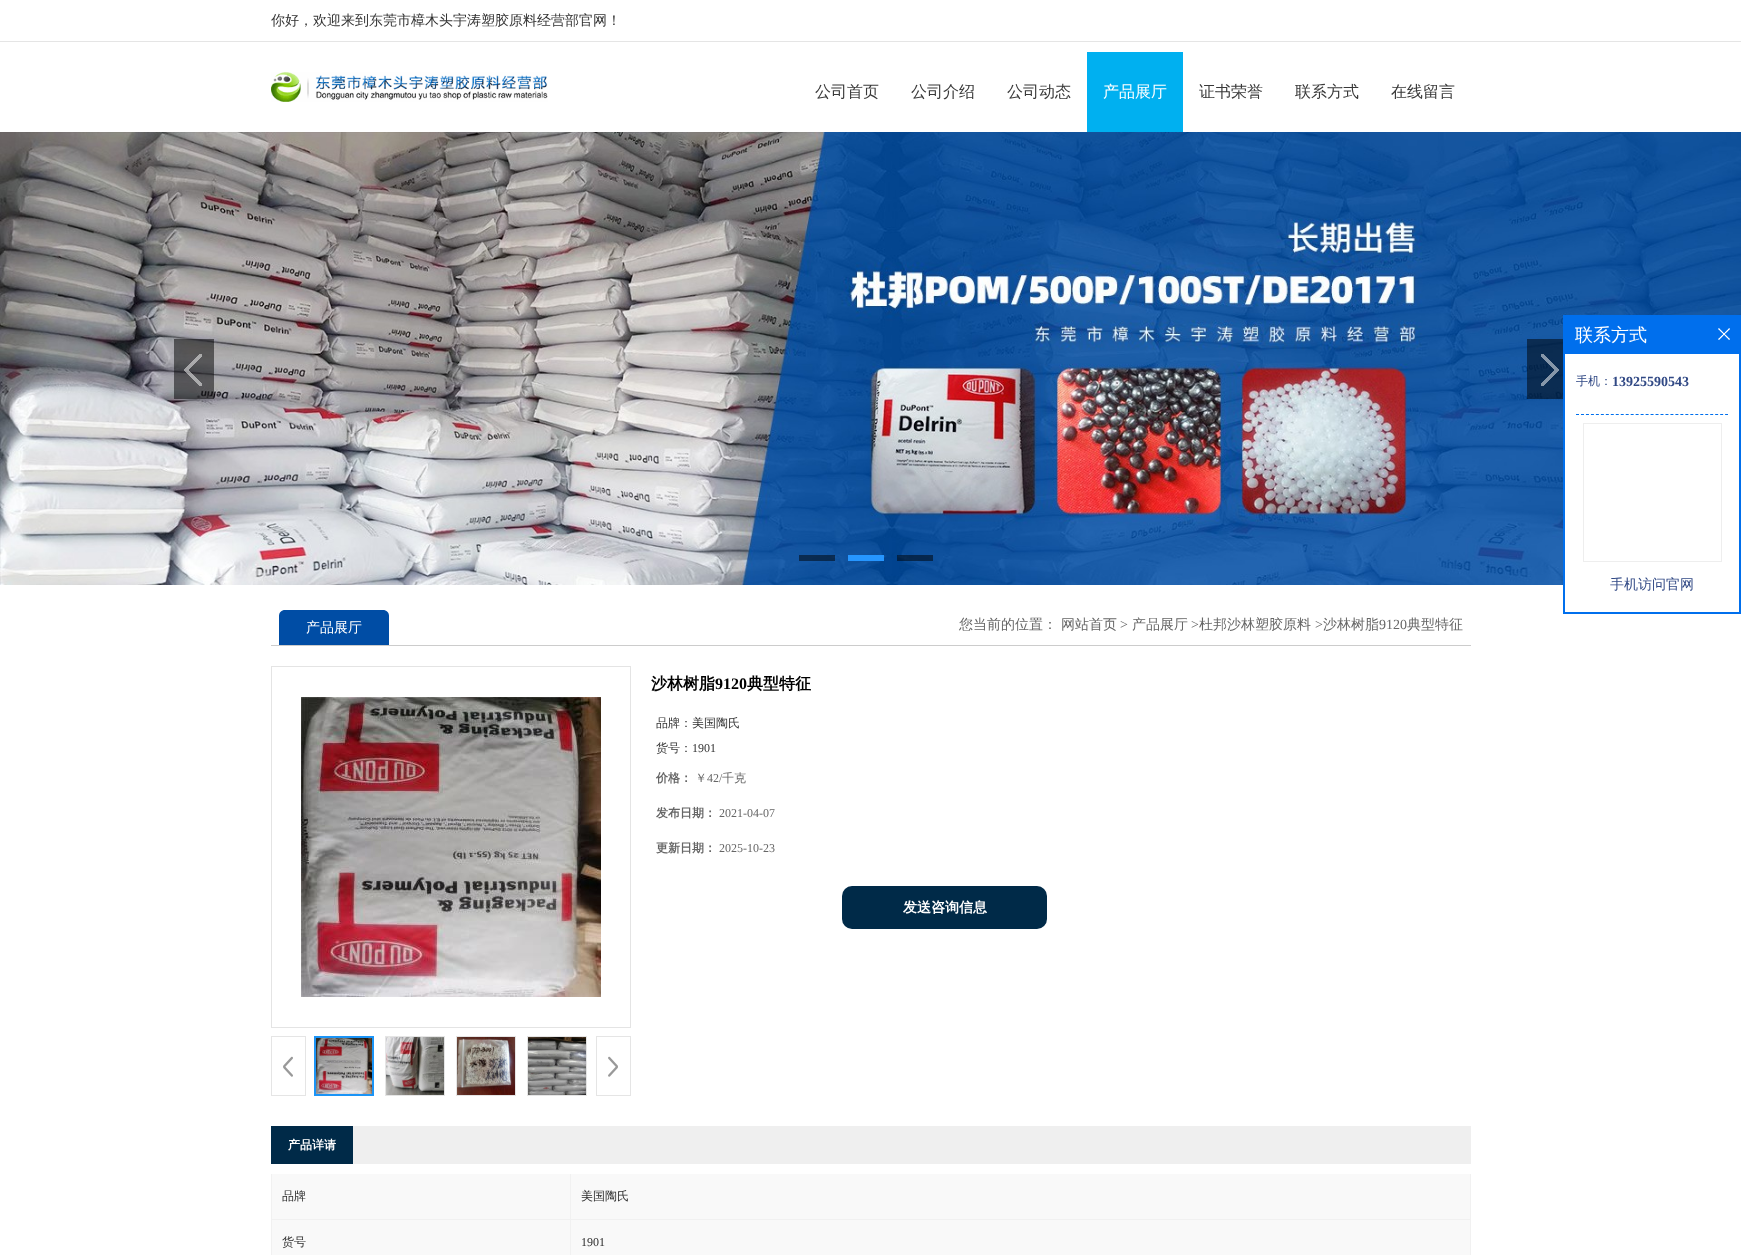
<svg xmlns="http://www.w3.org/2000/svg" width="1741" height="1255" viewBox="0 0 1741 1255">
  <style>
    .t1 { font: 500 14px WenQuanYi Zen Hei; fill: #333; }
    .t2 { font: 500 16px WenQuanYi Zen Hei; fill: #393939; }
    .t3 { font: 500 16px WenQuanYi Zen Hei; fill: #fff; }
    .t4 { font: 500 18px WenQuanYi Zen Hei; fill: #fff; }
    .t5 { font: 500 12px WenQuanYi Zen Hei; fill: #314985; }
    .t6 { font: bold 14px Liberation Serif; fill: #314985; }
    .t7 { font: 500 14px WenQuanYi Zen Hei; fill: #314985; }
    .t8 { font: 500 14px WenQuanYi Zen Hei; fill: #fff; }
    .t9 { font: 500 14px WenQuanYi Zen Hei; fill: #666; }
    .t10 { font: 14px Liberation Serif; fill: #666; }
    .t11 { font: bold 16px WenQuanYi Zen Hei; fill: #000; }
    .t12 { font: bold 16px Liberation Serif; fill: #000; }
    .t13 { font: 500 12px WenQuanYi Zen Hei; fill: #333; }
    .t14 { font: 12px Liberation Serif; fill: #333; }
    .t15 { font: bold 12px WenQuanYi Zen Hei; fill: #666; }
    .t16 { font: 500 12px WenQuanYi Zen Hei; fill: #666; }
    .t17 { font: 12px Liberation Serif; fill: #666; }
    .t18 { font: bold 14px WenQuanYi Zen Hei; fill: #fff; }
    .t19 { font: bold 12px WenQuanYi Zen Hei; fill: #fff; }
    .t20 { font: 500 12px WenQuanYi Zen Hei; fill: #2d2d2d; }
    .t21 { font: 12px Liberation Serif; fill: #2d2d2d; }
  </style>
  <rect width="100%" height="100%" fill="#fff"/>
  <rect x="0" y="41" width="1741" height="1" fill="#e5e5e5"/>
  <text x="271" y="25" class="t1">你好，欢迎来到东莞市樟木头宇涛塑胶原料经营部官网！</text>
  <image x="271" y="72" width="277" height="30" href="images/1.png"/>
  <text x="815" y="97" class="t2">公司首页</text>
  <text x="911" y="97" class="t2">公司介绍</text>
  <text x="1007" y="97" class="t2">公司动态</text>
  <rect x="1087" y="52" width="96" height="80" fill="#00b0f0"/>
  <text x="1103" y="97" class="t3">产品展厅</text>
  <text x="1199" y="97" class="t2">证书荣誉</text>
  <text x="1295" y="97" class="t2">联系方式</text>
  <text x="1391" y="97" class="t2">在线留言</text>
  <image x="0" y="132" width="1741" height="453" href="images/2.png"/>
  <rect x="174" y="339" width="40" height="60" fill="#00000080"/>
  <image x="184" y="354" width="18" height="32" href="images/3.png"/>
  <rect x="1527" y="339" width="36" height="60" fill="#00000080"/>
  <image x="1541" y="354" width="18" height="32" href="images/4.png"/>
  <rect x="799" y="555" width="36" height="6" fill="#00000080"/>
  <rect x="848" y="555" width="36" height="6" fill="#2696ff"/>
  <rect x="897" y="555" width="36" height="6" fill="#00000080"/>
  <rect x="1563" y="315" width="178" height="299" fill="#006fed"/>
  <text x="1575" y="341" class="t4">联系方式</text>
  <image x="1718" y="328" width="12" height="12" href="images/5.png"/>
  <rect x="1565" y="354" width="174" height="258" fill="#fff"/>
  <path d="M1576 414.5H1728" fill="none" stroke="#006fed" stroke-dasharray="3 1.97"/>
  <text x="1576" y="385" class="t5">手机：</text>
  <text x="1612" y="386" class="t6">13925590543</text>
  <rect x="1583.5" y="423.5" width="138" height="138" fill="none" stroke="#eee"/>
  <text x="1610" y="589" class="t7">手机访问官网</text>
  <rect x="271" y="645" width="1200" height="1" fill="#ccc"/>
  <path d="M285 610H383C386.5 610 389 612.5 389 616V645H279V616C279 612.5 281.5 610 285 610Z" fill="#004da5"/>
  <text x="306" y="632" class="t8">产品展厅</text>
  <text x="959" y="629" class="t9">您当前的位置：</text>
  <text x="1061" y="629" class="t9">网站首页</text>
  <text x="1120" y="629" class="t10">&gt;</text>
  <text x="1132" y="629" class="t9">产品展厅</text>
  <text x="1191" y="629" class="t10">&gt;</text>
  <text x="1199" y="629" class="t9">杜邦沙林塑胶原料</text>
  <text x="1315" y="629" class="t10">&gt;</text>
  <text x="1323" y="629" class="t9">沙林树脂</text>
  <text x="1379" y="629" class="t10">9120</text>
  <text x="1407" y="629" class="t9">典型特征</text>
  <rect x="271.5" y="666.5" width="359" height="361" fill="none" stroke="#e4e4e4"/>
  <image x="301" y="697" width="300" height="300" href="images/6.png"/>
  <image x="283" y="1056" width="10" height="21" href="images/7.png"/>
  <rect x="271.5" y="1036.5" width="34" height="59" fill="none" stroke="#e5e5e5"/>
  <rect x="315" y="1037" width="58" height="58" fill="none" stroke="#1b94f6" stroke-width="2"/>
  <image x="316" y="1038" width="56" height="56" href="images/8.png"/>
  <rect x="385.5" y="1036.5" width="59" height="59" fill="none" stroke="#e5e5e5"/>
  <image x="386" y="1037" width="58" height="58" href="images/9.png"/>
  <rect x="456.5" y="1036.5" width="59" height="59" fill="none" stroke="#e5e5e5"/>
  <image x="457" y="1037" width="58" height="58" href="images/10.png"/>
  <rect x="527.5" y="1036.5" width="59" height="59" fill="none" stroke="#e5e5e5"/>
  <image x="528" y="1037" width="58" height="58" href="images/11.png"/>
  <image x="608" y="1056" width="10" height="21" href="images/12.png"/>
  <rect x="596.5" y="1036.5" width="34" height="59" fill="none" stroke="#e5e5e5"/>
  <text x="651" y="689" class="t11">沙林树脂</text>
  <text x="715" y="689" class="t12">9120</text>
  <text x="747" y="689" class="t11">典型特征</text>
  <text x="656" y="727" class="t13">品牌：美国陶氏</text>
  <text x="656" y="752" class="t13">货号：</text>
  <text x="692" y="752" class="t14">1901</text>
  <text x="656" y="782" class="t15">价格：</text>
  <text x="695" y="782" class="t16">￥</text>
  <text x="707" y="782" class="t17">42/</text>
  <text x="722" y="782" class="t16">千克</text>
  <text x="656" y="817" class="t15">发布日期：</text>
  <text x="719" y="817" class="t17">2021-04-07</text>
  <text x="656" y="852" class="t15">更新日期：</text>
  <text x="719" y="852" class="t17">2025-10-23</text>
  <rect x="842" y="886" width="205" height="43" rx="10" fill="#002a48"/>
  <text x="903" y="912" class="t18">发送咨询信息</text>
  <rect x="353" y="1126" width="1118" height="38" fill="#efefef"/>
  <rect x="271" y="1126" width="82" height="38" fill="#002a48"/>
  <text x="288" y="1149" class="t19">产品详请</text>
  <rect x="271" y="1174" width="1" height="81" fill="#f1f1f1"/>
  <rect x="272" y="1174" width="1198" height="81" fill="#f9f9f9"/>
  <rect x="570" y="1174" width="1" height="81" fill="#f1f1f1"/>
  <rect x="272" y="1219" width="299" height="1" fill="#f1f1f1"/>
  <text x="282" y="1200" class="t20">品牌</text>
  <rect x="1470" y="1174" width="1" height="81" fill="#f1f1f1"/>
  <rect x="571" y="1219" width="900" height="1" fill="#f1f1f1"/>
  <text x="581" y="1200" class="t20">美国陶氏</text>
  <text x="282" y="1246" class="t20">货号</text>
  <text x="581" y="1246" class="t21">1901</text>
</svg>
